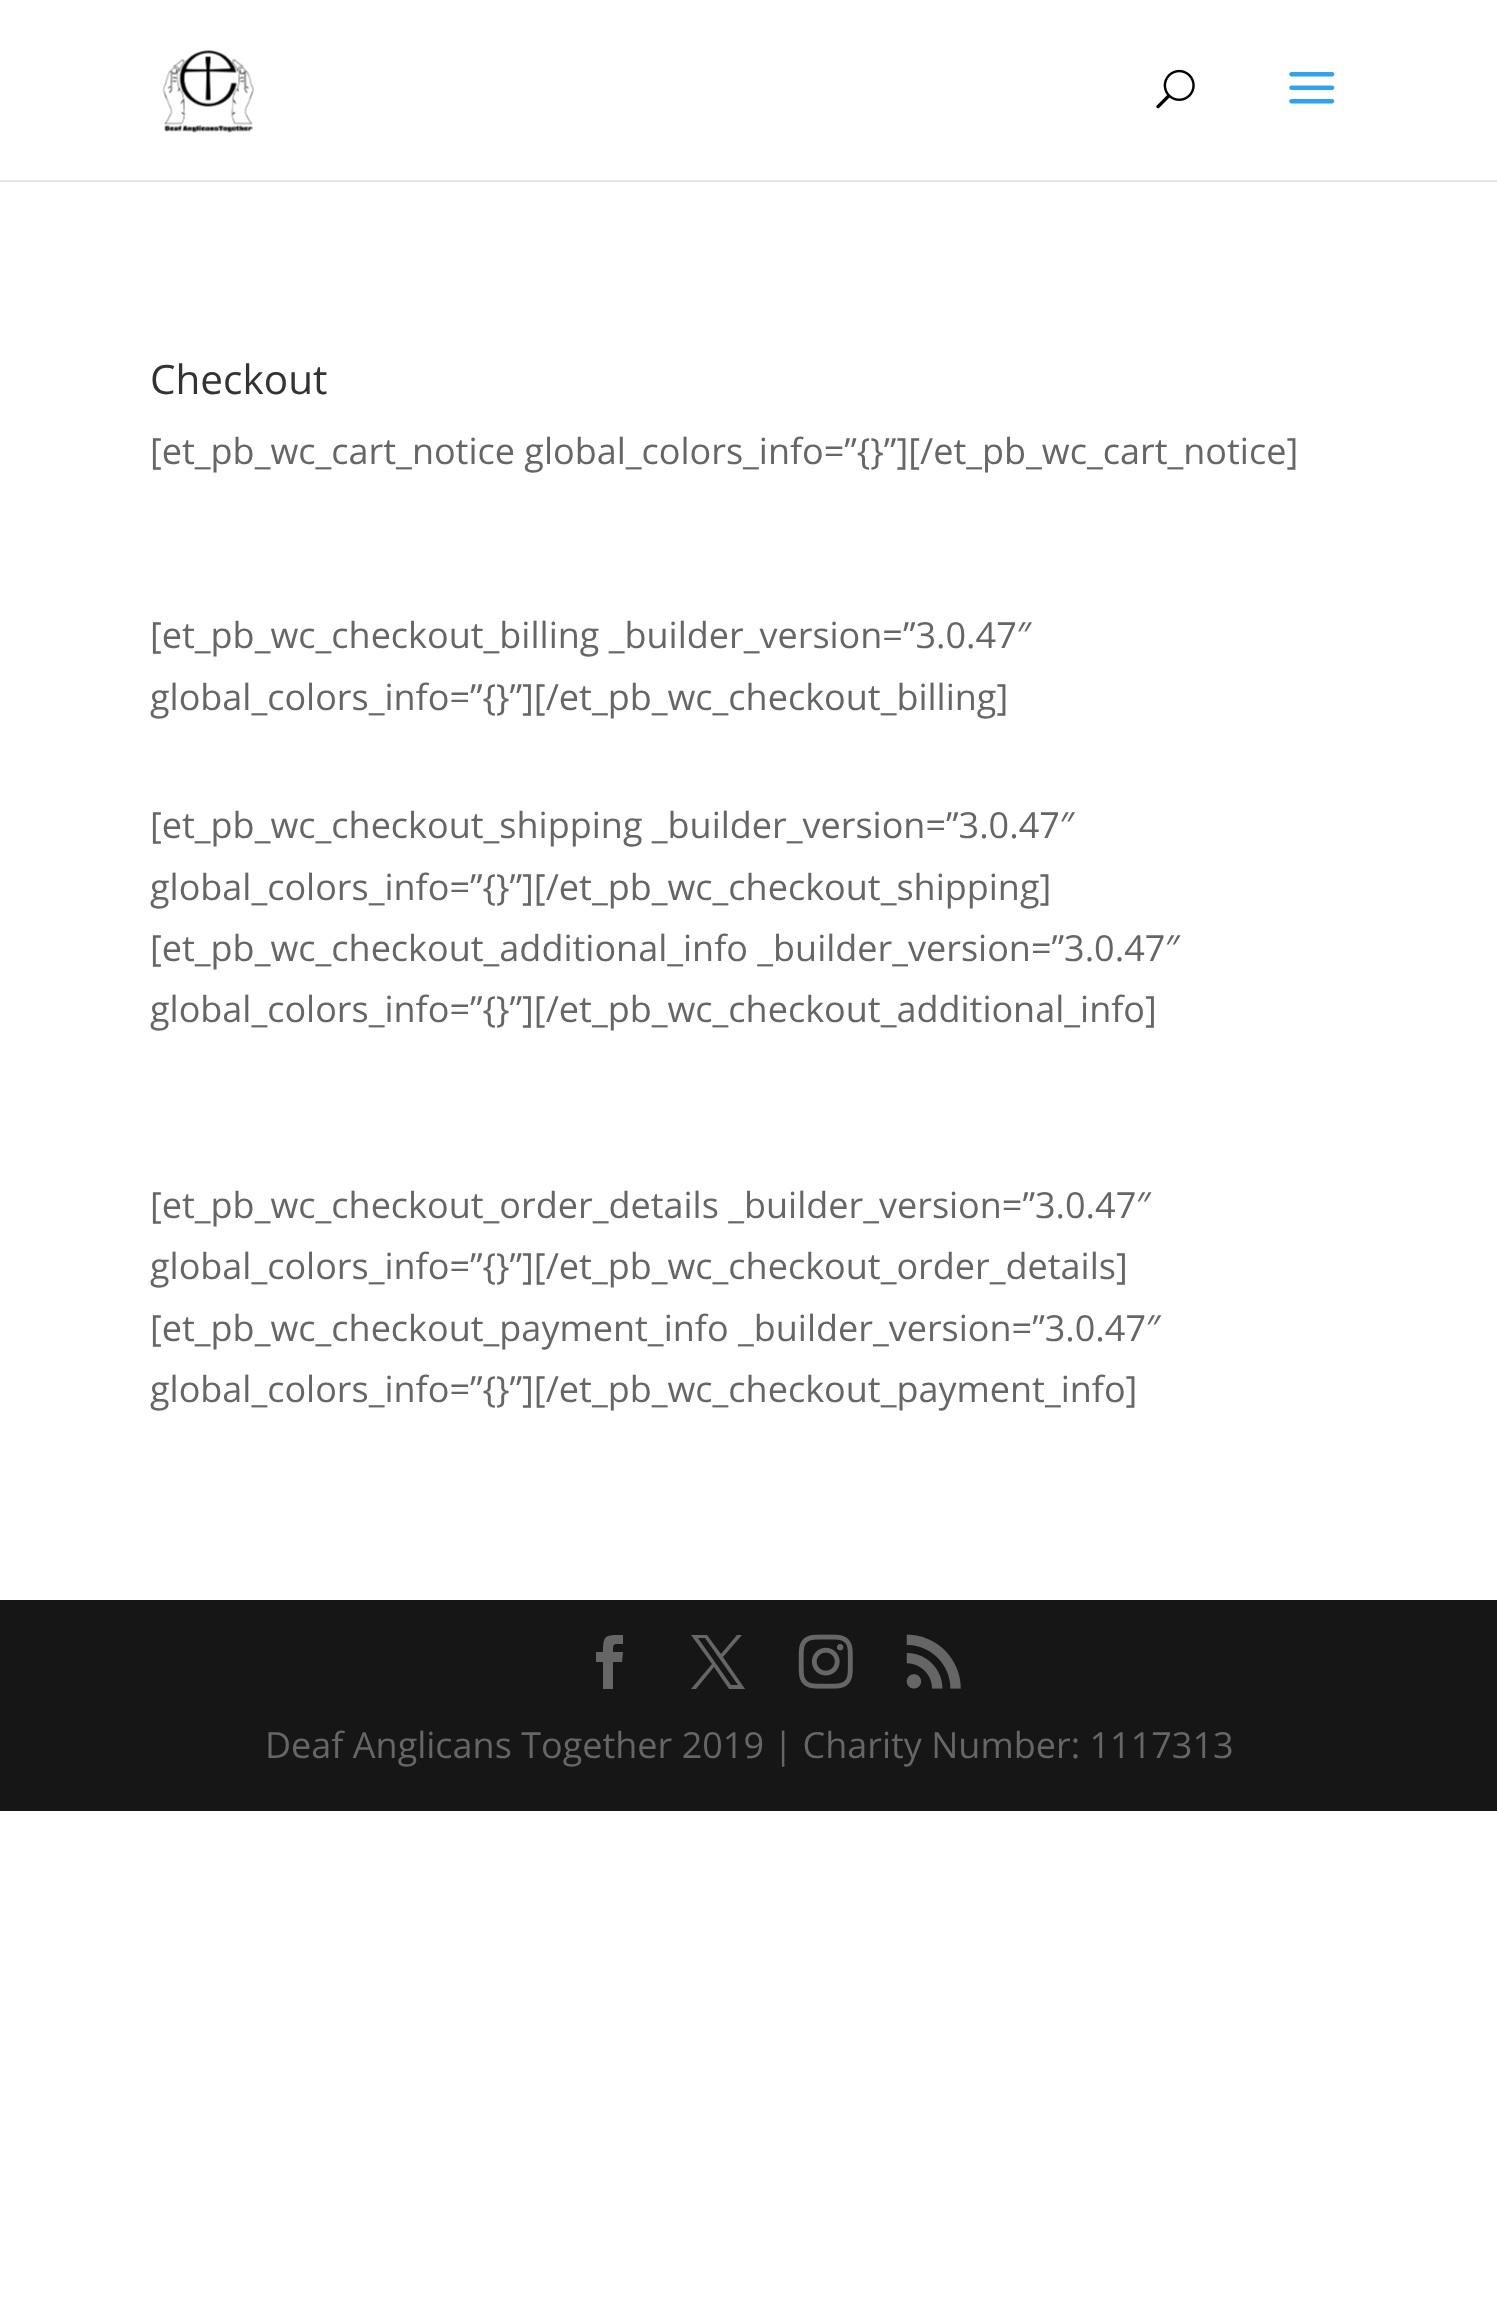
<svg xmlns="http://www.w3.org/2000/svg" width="1497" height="2314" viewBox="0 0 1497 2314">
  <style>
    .t1 { font: 40.5px Open Sans; fill: #333; }
    .t2 { font: 36px Open Sans; fill: #666; }
  </style>
  <rect width="100%" height="100%" fill="#fff"/>
  <path d="M0 180V182H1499V2H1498V180Z" fill="#e6e6e6"/>
  <image x="162" y="50" width="92" height="83" href="images/1.png"/>
  <image x="1156" y="69" width="39" height="40" href="images/2.png"/>
  <image x="1289" y="72" width="46" height="32" href="images/3.png"/>
  <text x="150" y="394" class="t1">Checkout</text>
  <text x="150" y="464" class="t2">[et_pb_wc_cart_notice global_colors_info=”{}”][/et_pb_wc_cart_notice]</text>
  <text x="150" y="648" class="t2">[et_pb_wc_checkout_billing _builder_version=”3.0.47″</text>
  <text x="150" y="710" class="t2">global_colors_info=”{}”][/et_pb_wc_checkout_billing]</text>
  <text x="150" y="838" class="t2">[et_pb_wc_checkout_shipping _builder_version=”3.0.47″</text>
  <text x="150" y="900" class="t2">global_colors_info=”{}”][/et_pb_wc_checkout_shipping]</text>
  <text x="150" y="961" class="t2">[et_pb_wc_checkout_additional_info _builder_version=”3.0.47″</text>
  <text x="150" y="1022" class="t2">global_colors_info=”{}”][/et_pb_wc_checkout_additional_info]</text>
  <text x="150" y="1218" class="t2">[et_pb_wc_checkout_order_details _builder_version=”3.0.47″</text>
  <text x="150" y="1279" class="t2">global_colors_info=”{}”][/et_pb_wc_checkout_order_details]</text>
  <text x="150" y="1341" class="t2">[et_pb_wc_checkout_payment_info _builder_version=”3.0.47″</text>
  <text x="150" y="1402" class="t2">global_colors_info=”{}”][/et_pb_wc_checkout_payment_info]</text>
  <rect x="0" y="1600" width="1497" height="211" fill="#161616"/>
  <path d="M603 1689H613V1662H622L623 1652H613C613 1643 613 1644 623 1644V1635C606 1635 603 1634 603 1652H596V1662H603Z" fill="#666"/>
  <path d="M691 1635L712 1664L691 1689H696L714 1667L729 1689H745L723 1657L742 1635H737L721 1654L707 1635ZM698 1638H705L738 1685H731Z" fill="#666"/>
  <image x="798" y="1634" width="55" height="55" href="images/4.png"/>
  <image x="906" y="1634" width="55" height="55" href="images/5.png"/>
  <text x="265" y="1758" class="t2">Deaf Anglicans Together 2019 | Charity Number: 1117313</text>
</svg>
